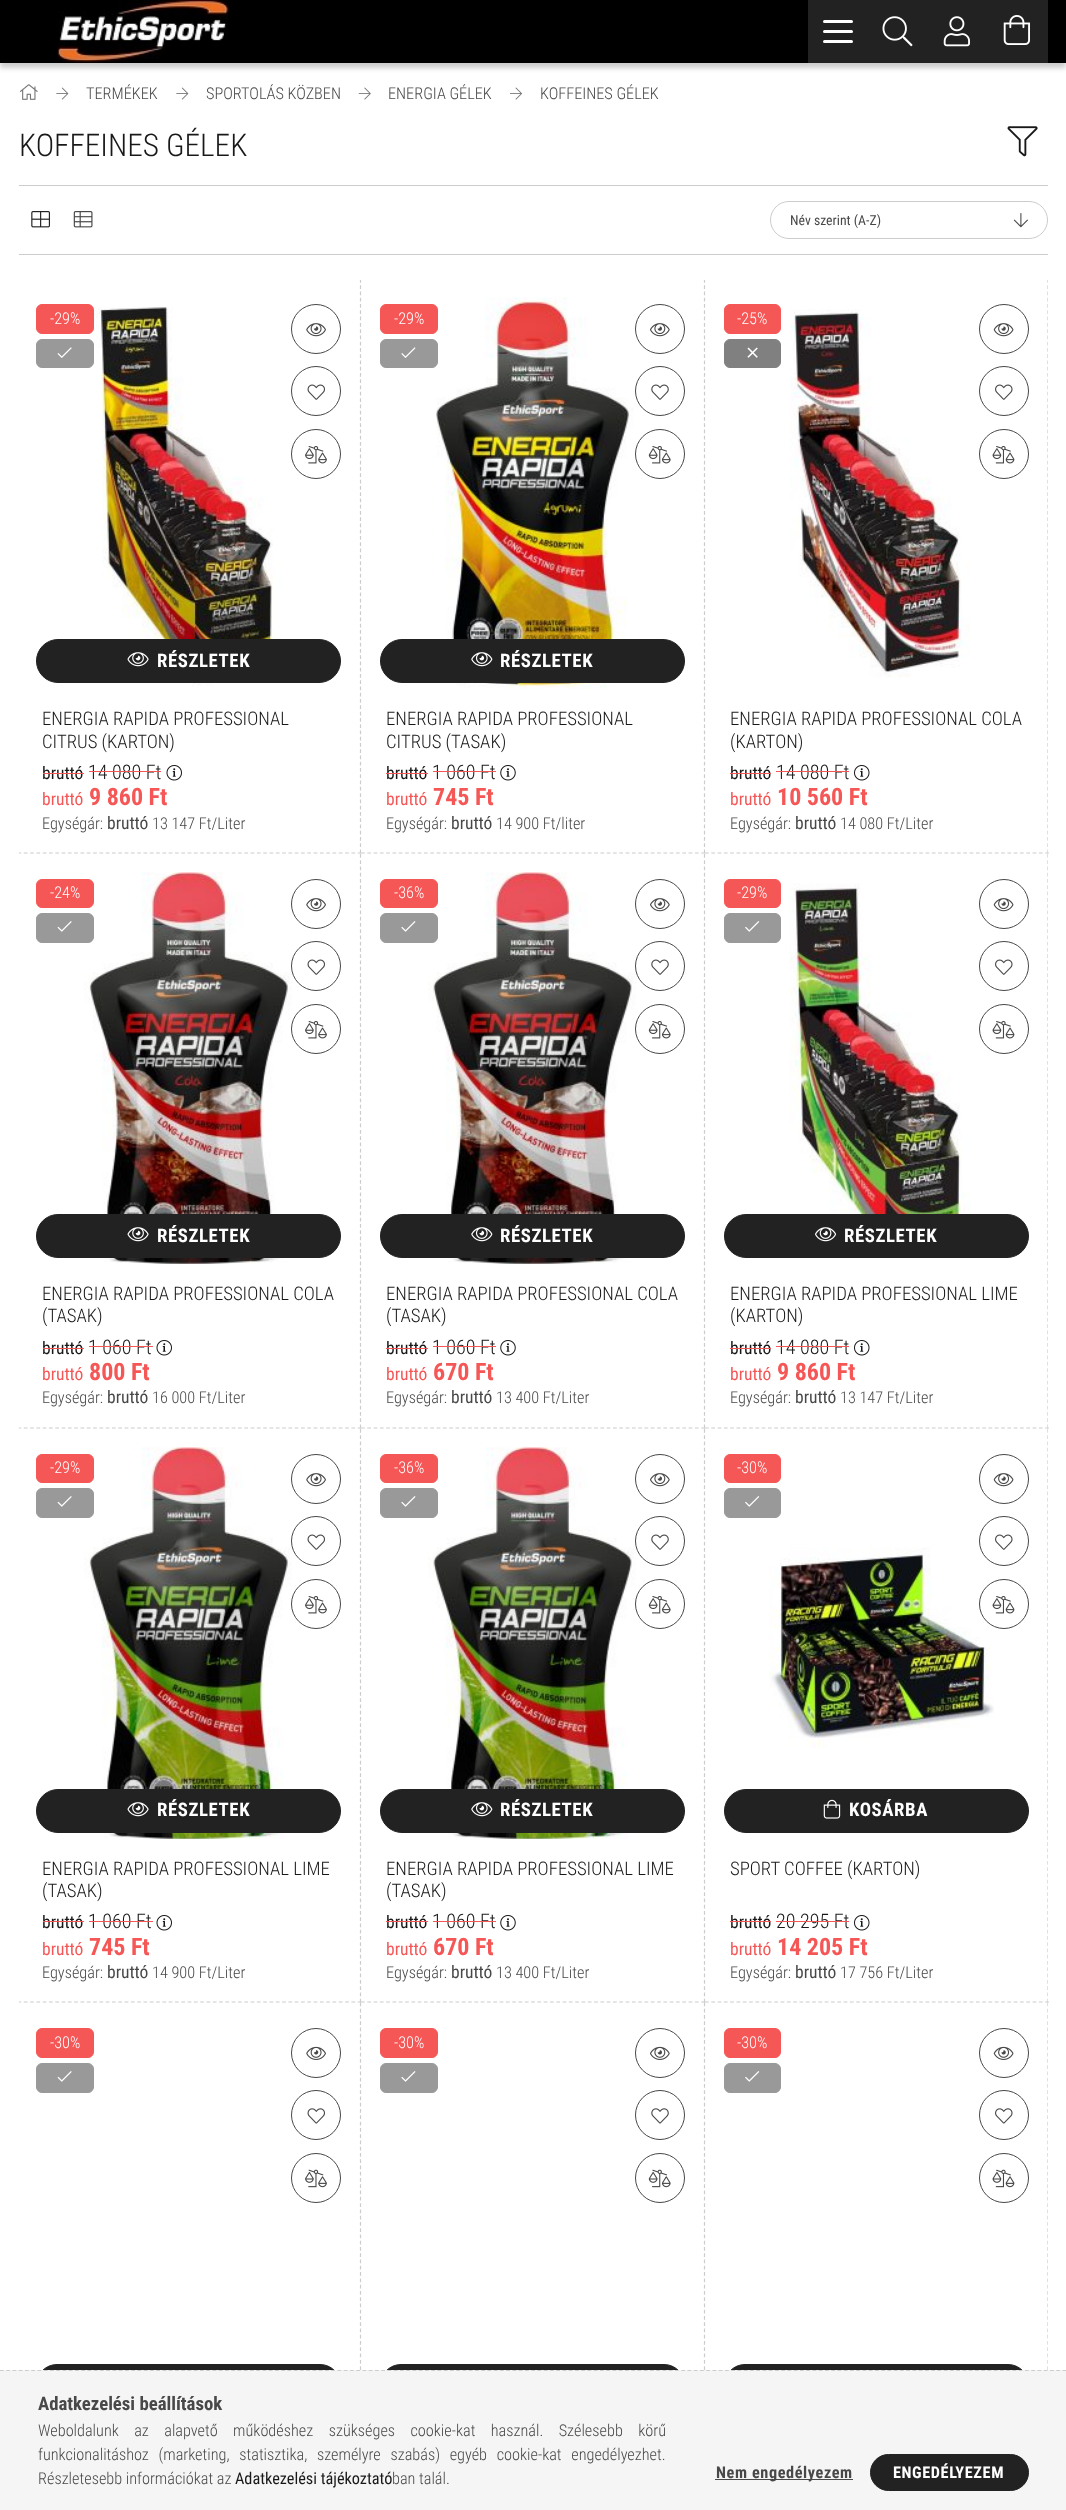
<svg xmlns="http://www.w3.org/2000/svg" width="1066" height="2510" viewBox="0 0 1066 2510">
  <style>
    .t1 { font: 300 16.25px Roboto Condensed; fill: #484848; }
    .t2 { font: 300 31.25px Roboto Condensed; fill: #181818; }
    .t3 { font: 13.75px Roboto Condensed; fill: #484848; }
    .t4 { font: 300 16.25px Roboto Condensed; fill: #fff; }
    .t5 { font: bold 18.75px Roboto Condensed; letter-spacing: 0.6px; fill: #fff; }
    .t6 { font: 300 18.75px Roboto Condensed; fill: #181818; }
    .t7 { font: 17.5px Roboto Condensed; fill: #181818; }
    .t8 { font: 300 20px Roboto Condensed; fill: #181818; }
    .t9 { font: 17.5px Roboto Condensed; fill: #f55656; }
    .t10 { font: bold 24px Roboto Condensed; fill: #f55656; }
    .t11 { font: 17.5px Roboto Condensed; fill: #484848; }
    .t12 { font: bold 18.75px Roboto Condensed; fill: #484848; }
    .t13 { font: 16.25px Roboto Condensed; fill: #181818; }
    .t14 { font: bold 16.25px Roboto Condensed; letter-spacing: 0.6px; fill: #484848; }
    .t15 { font: bold 16.25px Roboto Condensed; letter-spacing: 0.6px; fill: #fff; }
  </style>
  <defs>
    <clipPath id="clip1"><rect x="19" y="280" width="1029" height="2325"/></clipPath>
  </defs>
  <rect width="100%" height="100%" fill="#fff"/>
  <rect x="0" y="5" width="1066" height="63" fill="#00000033" filter="blur(2.5px)"/>
  <rect x="0" y="0" width="1066" height="63" fill="#000"/>
  <image x="56" y="0" width="174" height="63" href="images/1.png"/>
  <rect x="808" y="0" width="240" height="63" fill="#222"/>
  <rect x="823" y="20" width="30" height="3" rx="1.5" fill="#fff"/>
  <rect x="823" y="30" width="30" height="3" rx="1.5" fill="#fff"/>
  <rect x="823" y="40" width="30" height="3" rx="1.5" fill="#fff"/>
  <image x="882" y="16" width="31" height="31" href="images/2.png"/>
  <image x="943" y="16" width="27" height="31" href="images/3.png"/>
  <image x="1003" y="15" width="27" height="30" href="images/4.png"/>
  <image x="19" y="84" width="19" height="16" href="images/5.png"/>
  <image x="56" y="87" width="13" height="13" href="images/6.png"/>
  <text x="86" y="99" class="t1">TERMÉKEK</text>
  <image x="176" y="87" width="13" height="13" href="images/6.png"/>
  <text x="206" y="99" class="t1">SPORTOLÁS KÖZBEN</text>
  <image x="358" y="87" width="13" height="13" href="images/7.png"/>
  <text x="388" y="99" class="t1">ENERGIA GÉLEK</text>
  <image x="510" y="87" width="12" height="13" href="images/8.png"/>
  <text x="540" y="99" class="t1">KOFFEINES GÉLEK</text>
  <text x="19" y="156" class="t2">KOFFEINES GÉLEK</text>
  <image x="1007" y="126" width="31" height="31" href="images/9.png"/>
  <rect x="19" y="185" width="1029" height="1" fill="#ccc"/>
  <rect x="19" y="254" width="1029" height="1" fill="#ccc"/>
  <image x="31" y="211" width="19" height="17" href="images/10.png"/>
  <image x="73" y="211" width="20" height="17" href="images/11.png"/>
  <rect x="770.5" y="201.5" width="277" height="37" rx="18.5" fill="none" stroke="#ccc"/>
  <text x="790" y="225" class="t3">Név szerint (A-Z)</text>
  <image x="1013" y="213" width="15" height="15" href="images/12.png"/>
  <g clip-path="url(#clip1)">
    <path d="M360.5 279V854" fill="none" stroke="#ccc" stroke-width="1.2" stroke-dasharray="3.75 2.52"/>
    <path d="M17.5 853H361" fill="none" stroke="#ccc" stroke-width="1.2" stroke-dasharray="3.75 2.55"/>
  </g>
  <image x="93" y="307" width="189" height="379" href="images/17.png"/>
  <rect x="36.5" y="304.5" width="57" height="29" rx="5.5" fill="#f55656" stroke="#f55656"/>
  <text x="50" y="324" class="t4">-29%</text>
  <rect x="36.5" y="339.5" width="57" height="28" rx="5.5" fill="#999" stroke="#999"/>
  <image x="57" y="347" width="15" height="11" href="images/13.png"/>
  <circle cx="316" cy="329" r="24.5" fill="none" stroke="#484848"/>
  <image x="306" y="323" width="20" height="14" href="images/14.png"/>
  <circle cx="316" cy="391" r="24.5" fill="none" stroke="#484848"/>
  <image x="307" y="384" width="18" height="16" href="images/15.png"/>
  <circle cx="316" cy="454" r="24.5" fill="none" stroke="#484848"/>
  <image x="305" y="446" width="22" height="18" href="images/16.png"/>
  <rect x="36.5" y="639.5" width="304" height="43" rx="21.5" fill="#222" stroke="#222"/>
  <image x="127" y="652" width="22" height="15" href="images/18.png"/>
  <text x="157" y="667" class="t5">RÉSZLETEK</text>
  <text x="42" y="725" class="t6">ENERGIA RAPIDA PROFESSIONAL</text>
  <text x="42" y="748" class="t6">CITRUS (KARTON)</text>
  <text x="42" y="779" class="t7">bruttó</text>
  <rect x="43" y="773" width="41" height="1" fill="#f55656"/>
  <text x="88" y="779" class="t8">14 080 Ft</text>
  <rect x="89" y="771" width="72" height="1" fill="#f55656"/>
  <image x="166" y="765" width="16" height="16" href="images/19.png"/>
  <text x="42" y="805" class="t9">bruttó</text>
  <text x="89" y="805" class="t10">9 860 Ft</text>
  <text x="42" y="829" class="t1">Egységár:</text>
  <text x="107" y="829" class="t11">bruttó</text>
  <text x="152" y="829" class="t1">13 147 Ft/Liter</text>
  <g clip-path="url(#clip1)">
    <path d="M704.5 279V854" fill="none" stroke="#ccc" stroke-width="1.2" stroke-dasharray="3.75 2.52"/>
  </g>
  <path d="M361 853H705" fill="none" stroke="#ccc" stroke-width="1.2" stroke-dasharray="3.75 2.55"/>
  <image x="436" y="297" width="198" height="392" href="images/24.png"/>
  <rect x="380.5" y="304.5" width="57" height="29" rx="5.5" fill="#f55656" stroke="#f55656"/>
  <text x="394" y="324" class="t4">-29%</text>
  <rect x="380.5" y="339.5" width="57" height="28" rx="5.5" fill="#999" stroke="#999"/>
  <image x="401" y="347" width="15" height="11" href="images/20.png"/>
  <circle cx="660" cy="329" r="24.5" fill="none" stroke="#484848"/>
  <image x="650" y="323" width="20" height="14" href="images/21.png"/>
  <circle cx="660" cy="391" r="24.5" fill="none" stroke="#484848"/>
  <image x="651" y="384" width="18" height="16" href="images/22.png"/>
  <circle cx="660" cy="454" r="24.5" fill="none" stroke="#484848"/>
  <image x="648" y="446" width="23" height="18" href="images/23.png"/>
  <rect x="380.5" y="639.5" width="304" height="43" rx="21.5" fill="#222" stroke="#222"/>
  <image x="471" y="652" width="22" height="15" href="images/25.png"/>
  <text x="500" y="667" class="t5">RÉSZLETEK</text>
  <text x="386" y="725" class="t6">ENERGIA RAPIDA PROFESSIONAL</text>
  <text x="386" y="748" class="t6">CITRUS (TASAK)</text>
  <text x="386" y="779" class="t7">bruttó</text>
  <rect x="386" y="773" width="42" height="1" fill="#f55656"/>
  <text x="432" y="779" class="t8">1 060 Ft</text>
  <rect x="433" y="771" width="63" height="1" fill="#f55656"/>
  <image x="500" y="765" width="16" height="16" href="images/26.png"/>
  <text x="386" y="805" class="t9">bruttó</text>
  <text x="433" y="805" class="t10">745 Ft</text>
  <text x="386" y="829" class="t1">Egységár:</text>
  <text x="451" y="829" class="t11">bruttó</text>
  <text x="496" y="829" class="t1">14 900 Ft/liter</text>
  <g clip-path="url(#clip1)">
    <path d="M1048 279V854" fill="none" stroke="#ccc" stroke-width="1.2" stroke-dasharray="3.75 2.52"/>
  </g>
  <path d="M705 853H1049" fill="none" stroke="#ccc" stroke-width="1.2" stroke-dasharray="3.75 2.55"/>
  <rect x="724.5" y="304.5" width="56" height="29" rx="5.5" fill="#f55656" stroke="#f55656"/>
  <text x="737" y="324" class="t4">-25%</text>
  <rect x="724.5" y="339.5" width="56" height="28" rx="5.5" fill="#808080" stroke="#808080"/>
  <image x="747" y="347" width="11" height="11" href="images/27.png"/>
  <image x="790" y="309" width="180" height="369" href="images/28.png"/>
  <circle cx="1004" cy="329" r="24.5" fill="none" stroke="#484848"/>
  <image x="993" y="323" width="21" height="14" href="images/29.png"/>
  <circle cx="1004" cy="391" r="24.5" fill="none" stroke="#484848"/>
  <image x="995" y="384" width="18" height="16" href="images/30.png"/>
  <circle cx="1004" cy="454" r="24.5" fill="none" stroke="#484848"/>
  <image x="992" y="446" width="23" height="18" href="images/31.png"/>
  <text x="730" y="725" class="t6">ENERGIA RAPIDA PROFESSIONAL COLA</text>
  <text x="730" y="748" class="t6">(KARTON)</text>
  <text x="730" y="779" class="t7">bruttó</text>
  <rect x="730" y="773" width="41" height="1" fill="#f55656"/>
  <text x="776" y="779" class="t8">14 080 Ft</text>
  <rect x="776" y="771" width="73" height="1" fill="#f55656"/>
  <image x="854" y="765" width="16" height="16" href="images/32.png"/>
  <text x="730" y="805" class="t9">bruttó</text>
  <text x="777" y="805" class="t10">10 560 Ft</text>
  <text x="730" y="829" class="t1">Egységár:</text>
  <text x="795" y="829" class="t11">bruttó</text>
  <text x="840" y="829" class="t1">14 080 Ft/Liter</text>
  <path d="M360.5 854V1429" fill="none" stroke="#ccc" stroke-width="1.2" stroke-dasharray="3.75 2.52"/>
  <g clip-path="url(#clip1)">
    <path d="M17.5 1428H361" fill="none" stroke="#ccc" stroke-width="1.2" stroke-dasharray="3.75 2.55"/>
  </g>
  <image x="84" y="872" width="208" height="392" href="images/34.png"/>
  <rect x="36.5" y="879.5" width="57" height="28" rx="5.5" fill="#f55656" stroke="#f55656"/>
  <text x="50" y="898" class="t4">-24%</text>
  <rect x="36.5" y="913.5" width="57" height="29" rx="5.5" fill="#999" stroke="#999"/>
  <image x="57" y="921" width="15" height="11" href="images/33.png"/>
  <circle cx="316" cy="904" r="24.5" fill="none" stroke="#484848"/>
  <image x="306" y="898" width="20" height="14" href="images/14.png"/>
  <circle cx="316" cy="966" r="24.5" fill="none" stroke="#484848"/>
  <image x="307" y="959" width="18" height="16" href="images/15.png"/>
  <circle cx="316" cy="1029" r="24.5" fill="none" stroke="#484848"/>
  <image x="305" y="1021" width="22" height="18" href="images/16.png"/>
  <rect x="36.5" y="1214.5" width="304" height="43" rx="21.5" fill="#222" stroke="#222"/>
  <image x="127" y="1227" width="22" height="15" href="images/18.png"/>
  <text x="157" y="1242" class="t5">RÉSZLETEK</text>
  <text x="42" y="1300" class="t6">ENERGIA RAPIDA PROFESSIONAL COLA</text>
  <text x="42" y="1322" class="t6">(TASAK)</text>
  <text x="42" y="1354" class="t7">bruttó</text>
  <rect x="43" y="1348" width="41" height="1" fill="#f55656"/>
  <text x="88" y="1354" class="t8">1 060 Ft</text>
  <rect x="89" y="1346" width="64" height="1" fill="#f55656"/>
  <image x="156" y="1340" width="16" height="16" href="images/19.png"/>
  <text x="42" y="1380" class="t9">bruttó</text>
  <text x="89" y="1380" class="t10">800 Ft</text>
  <text x="42" y="1403" class="t1">Egységár:</text>
  <text x="107" y="1403" class="t11">bruttó</text>
  <text x="152" y="1403" class="t1">16 000 Ft/Liter</text>
  <path d="M704.5 854V1429" fill="none" stroke="#ccc" stroke-width="1.2" stroke-dasharray="3.75 2.52"/>
  <path d="M361 1428H705" fill="none" stroke="#ccc" stroke-width="1.2" stroke-dasharray="3.75 2.55"/>
  <image x="428" y="872" width="208" height="392" href="images/36.png"/>
  <rect x="380.5" y="879.5" width="57" height="28" rx="5.5" fill="#f55656" stroke="#f55656"/>
  <text x="394" y="898" class="t4">-36%</text>
  <rect x="380.5" y="913.5" width="57" height="29" rx="5.5" fill="#999" stroke="#999"/>
  <image x="401" y="921" width="15" height="11" href="images/35.png"/>
  <circle cx="660" cy="904" r="24.5" fill="none" stroke="#484848"/>
  <image x="650" y="898" width="20" height="14" href="images/21.png"/>
  <circle cx="660" cy="966" r="24.5" fill="none" stroke="#484848"/>
  <image x="651" y="959" width="18" height="16" href="images/22.png"/>
  <circle cx="660" cy="1029" r="24.5" fill="none" stroke="#484848"/>
  <image x="648" y="1021" width="23" height="18" href="images/23.png"/>
  <rect x="380.5" y="1214.5" width="304" height="43" rx="21.5" fill="#222" stroke="#222"/>
  <image x="471" y="1227" width="22" height="15" href="images/25.png"/>
  <text x="500" y="1242" class="t5">RÉSZLETEK</text>
  <text x="386" y="1300" class="t6">ENERGIA RAPIDA PROFESSIONAL COLA</text>
  <text x="386" y="1322" class="t6">(TASAK)</text>
  <text x="386" y="1354" class="t7">bruttó</text>
  <rect x="386" y="1348" width="42" height="1" fill="#f55656"/>
  <text x="432" y="1354" class="t8">1 060 Ft</text>
  <rect x="433" y="1346" width="63" height="1" fill="#f55656"/>
  <image x="500" y="1340" width="16" height="16" href="images/26.png"/>
  <text x="386" y="1380" class="t9">bruttó</text>
  <text x="433" y="1380" class="t10">670 Ft</text>
  <text x="386" y="1403" class="t1">Egységár:</text>
  <text x="451" y="1403" class="t11">bruttó</text>
  <text x="496" y="1403" class="t1">13 400 Ft/Liter</text>
  <g clip-path="url(#clip1)">
    <path d="M1048 854V1429" fill="none" stroke="#ccc" stroke-width="1.2" stroke-dasharray="3.75 2.52"/>
  </g>
  <path d="M705 1428H1049" fill="none" stroke="#ccc" stroke-width="1.2" stroke-dasharray="3.75 2.55"/>
  <rect x="724.5" y="879.5" width="56" height="28" rx="5.5" fill="#f55656" stroke="#f55656"/>
  <text x="737" y="898" class="t4">-29%</text>
  <rect x="724.5" y="913.5" width="56" height="29" rx="5.5" fill="#999" stroke="#999"/>
  <image x="745" y="921" width="15" height="11" href="images/37.png"/>
  <circle cx="1004" cy="904" r="24.5" fill="none" stroke="#484848"/>
  <image x="993" y="898" width="21" height="14" href="images/29.png"/>
  <circle cx="1004" cy="966" r="24.5" fill="none" stroke="#484848"/>
  <image x="995" y="959" width="18" height="16" href="images/30.png"/>
  <circle cx="1004" cy="1029" r="24.5" fill="none" stroke="#484848"/>
  <image x="992" y="1021" width="23" height="18" href="images/31.png"/>
  <image x="789" y="883" width="181" height="331" href="images/38.png"/>
  <rect x="724.5" y="1214.5" width="304" height="43" rx="21.5" fill="#222" stroke="#222"/>
  <image x="815" y="1227" width="22" height="15" href="images/39.png"/>
  <text x="844" y="1242" class="t5">RÉSZLETEK</text>
  <text x="730" y="1300" class="t6">ENERGIA RAPIDA PROFESSIONAL LIME</text>
  <text x="730" y="1322" class="t6">(KARTON)</text>
  <text x="730" y="1354" class="t7">bruttó</text>
  <rect x="730" y="1348" width="41" height="1" fill="#f55656"/>
  <text x="776" y="1354" class="t8">14 080 Ft</text>
  <rect x="776" y="1346" width="73" height="1" fill="#f55656"/>
  <image x="854" y="1340" width="16" height="16" href="images/32.png"/>
  <text x="730" y="1380" class="t9">bruttó</text>
  <text x="777" y="1380" class="t10">9 860 Ft</text>
  <text x="730" y="1403" class="t1">Egységár:</text>
  <text x="795" y="1403" class="t11">bruttó</text>
  <text x="840" y="1403" class="t1">13 147 Ft/Liter</text>
  <path d="M360.5 1429V2002.5" fill="none" stroke="#ccc" stroke-width="1.2" stroke-dasharray="3.75 2.51"/>
  <g clip-path="url(#clip1)">
    <path d="M17.5 2002H361" fill="none" stroke="#ccc" stroke-width="1.2" stroke-dasharray="3.75 2.55"/>
  </g>
  <image x="84" y="1447" width="208" height="392" href="images/40.png"/>
  <rect x="36.5" y="1454.5" width="57" height="28" rx="5.5" fill="#f55656" stroke="#f55656"/>
  <text x="50" y="1473" class="t4">-29%</text>
  <rect x="36.5" y="1488.5" width="57" height="29" rx="5.5" fill="#999" stroke="#999"/>
  <image x="57" y="1496" width="15" height="11" href="images/33.png"/>
  <circle cx="316" cy="1479" r="24.5" fill="none" stroke="#484848"/>
  <image x="306" y="1473" width="20" height="14" href="images/14.png"/>
  <circle cx="316" cy="1541" r="24.5" fill="none" stroke="#484848"/>
  <image x="307" y="1534" width="18" height="16" href="images/15.png"/>
  <circle cx="316" cy="1604" r="24.5" fill="none" stroke="#484848"/>
  <image x="305" y="1596" width="22" height="18" href="images/16.png"/>
  <rect x="36.5" y="1789.5" width="304" height="43" rx="21.5" fill="#222" stroke="#222"/>
  <image x="127" y="1802" width="22" height="15" href="images/18.png"/>
  <text x="157" y="1816" class="t5">RÉSZLETEK</text>
  <text x="42" y="1875" class="t6">ENERGIA RAPIDA PROFESSIONAL LIME</text>
  <text x="42" y="1897" class="t6">(TASAK)</text>
  <text x="42" y="1928" class="t7">bruttó</text>
  <rect x="43" y="1921" width="41" height="1" fill="#f55656"/>
  <text x="88" y="1928" class="t8">1 060 Ft</text>
  <rect x="89" y="1921" width="64" height="1" fill="#f55656"/>
  <image x="156" y="1915" width="16" height="16" href="images/19.png"/>
  <text x="42" y="1955" class="t9">bruttó</text>
  <text x="89" y="1955" class="t10">745 Ft</text>
  <text x="42" y="1978" class="t1">Egységár:</text>
  <text x="107" y="1978" class="t11">bruttó</text>
  <text x="152" y="1978" class="t1">14 900 Ft/Liter</text>
  <path d="M704.5 1429V2002.5" fill="none" stroke="#ccc" stroke-width="1.2" stroke-dasharray="3.75 2.51"/>
  <path d="M361 2002H705" fill="none" stroke="#ccc" stroke-width="1.2" stroke-dasharray="3.75 2.55"/>
  <image x="428" y="1447" width="208" height="392" href="images/41.png"/>
  <rect x="380.5" y="1454.5" width="57" height="28" rx="5.5" fill="#f55656" stroke="#f55656"/>
  <text x="394" y="1473" class="t4">-36%</text>
  <rect x="380.5" y="1488.5" width="57" height="29" rx="5.5" fill="#999" stroke="#999"/>
  <image x="401" y="1496" width="15" height="11" href="images/35.png"/>
  <circle cx="660" cy="1479" r="24.5" fill="none" stroke="#484848"/>
  <image x="650" y="1473" width="20" height="14" href="images/21.png"/>
  <circle cx="660" cy="1541" r="24.5" fill="none" stroke="#484848"/>
  <image x="651" y="1534" width="18" height="16" href="images/22.png"/>
  <circle cx="660" cy="1604" r="24.5" fill="none" stroke="#484848"/>
  <image x="648" y="1596" width="23" height="18" href="images/23.png"/>
  <rect x="380.5" y="1789.5" width="304" height="43" rx="21.5" fill="#222" stroke="#222"/>
  <image x="471" y="1802" width="22" height="15" href="images/25.png"/>
  <text x="500" y="1816" class="t5">RÉSZLETEK</text>
  <text x="386" y="1875" class="t6">ENERGIA RAPIDA PROFESSIONAL LIME</text>
  <text x="386" y="1897" class="t6">(TASAK)</text>
  <text x="386" y="1928" class="t7">bruttó</text>
  <rect x="386" y="1921" width="42" height="1" fill="#f55656"/>
  <text x="432" y="1928" class="t8">1 060 Ft</text>
  <rect x="433" y="1921" width="63" height="1" fill="#f55656"/>
  <image x="500" y="1915" width="16" height="16" href="images/26.png"/>
  <text x="386" y="1955" class="t9">bruttó</text>
  <text x="433" y="1955" class="t10">670 Ft</text>
  <text x="386" y="1978" class="t1">Egységár:</text>
  <text x="451" y="1978" class="t11">bruttó</text>
  <text x="496" y="1978" class="t1">13 400 Ft/Liter</text>
  <g clip-path="url(#clip1)">
    <path d="M1048 1429V2002.5" fill="none" stroke="#ccc" stroke-width="1.2" stroke-dasharray="3.75 2.51"/>
  </g>
  <path d="M705 2002H1049" fill="none" stroke="#ccc" stroke-width="1.2" stroke-dasharray="3.75 2.55"/>
  <rect x="724.5" y="1454.5" width="56" height="28" rx="5.5" fill="#f55656" stroke="#f55656"/>
  <text x="737" y="1473" class="t4">-30%</text>
  <rect x="724.5" y="1488.5" width="56" height="29" rx="5.5" fill="#999" stroke="#999"/>
  <image x="745" y="1496" width="15" height="11" href="images/37.png"/>
  <circle cx="1004" cy="1479" r="24.5" fill="none" stroke="#484848"/>
  <image x="993" y="1473" width="21" height="14" href="images/29.png"/>
  <image x="769" y="1547" width="225" height="201" href="images/42.png"/>
  <circle cx="1004" cy="1541" r="24.5" fill="none" stroke="#484848"/>
  <image x="995" y="1534" width="18" height="16" href="images/30.png"/>
  <circle cx="1004" cy="1604" r="24.5" fill="none" stroke="#484848"/>
  <image x="992" y="1596" width="23" height="18" href="images/31.png"/>
  <rect x="724.5" y="1789.5" width="304" height="43" rx="21.5" fill="#222" stroke="#222"/>
  <image x="823" y="1799" width="18" height="20" href="images/43.png"/>
  <text x="849" y="1816" class="t5">KOSÁRBA</text>
  <text x="730" y="1875" class="t6">SPORT COFFEE (KARTON)</text>
  <text x="730" y="1928" class="t7">bruttó</text>
  <rect x="730" y="1921" width="41" height="1" fill="#f55656"/>
  <text x="776" y="1928" class="t8">20 295 Ft</text>
  <rect x="776" y="1921" width="73" height="1" fill="#f55656"/>
  <image x="854" y="1915" width="16" height="16" href="images/32.png"/>
  <text x="730" y="1955" class="t9">bruttó</text>
  <text x="777" y="1955" class="t10">14 205 Ft</text>
  <text x="730" y="1978" class="t1">Egységár:</text>
  <text x="795" y="1978" class="t11">bruttó</text>
  <text x="840" y="1978" class="t1">17 756 Ft/Liter</text>
  <path d="M360.5 2002.5V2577.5" fill="none" stroke="#ccc" stroke-width="1.2" stroke-dasharray="3.75 2.52"/>
  <rect x="36.5" y="2028.5" width="57" height="29" rx="5.5" fill="#f55656" stroke="#f55656"/>
  <text x="50" y="2048" class="t4">-30%</text>
  <rect x="36.5" y="2063.5" width="57" height="29" rx="5.5" fill="#999" stroke="#999"/>
  <image x="57" y="2071" width="15" height="11" href="images/33.png"/>
  <circle cx="316" cy="2053" r="24.5" fill="none" stroke="#484848"/>
  <image x="306" y="2046" width="20" height="14" href="images/44.png"/>
  <circle cx="316" cy="2115" r="24.5" fill="none" stroke="#484848"/>
  <image x="307" y="2108" width="18" height="16" href="images/45.png"/>
  <circle cx="316" cy="2178" r="24.5" fill="none" stroke="#484848"/>
  <image x="305" y="2169" width="22" height="19" href="images/46.png"/>
  <rect x="36.5" y="2364.5" width="304" height="41" rx="20.5" fill="#222" stroke="#222"/>
  <path d="M704.5 2002.5V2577.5" fill="none" stroke="#ccc" stroke-width="1.2" stroke-dasharray="3.75 2.52"/>
  <rect x="380.5" y="2028.5" width="57" height="29" rx="5.5" fill="#f55656" stroke="#f55656"/>
  <text x="394" y="2048" class="t4">-30%</text>
  <rect x="380.5" y="2063.5" width="57" height="29" rx="5.5" fill="#999" stroke="#999"/>
  <image x="401" y="2071" width="15" height="11" href="images/35.png"/>
  <circle cx="660" cy="2053" r="24.5" fill="none" stroke="#484848"/>
  <image x="650" y="2046" width="20" height="14" href="images/47.png"/>
  <circle cx="660" cy="2115" r="24.5" fill="none" stroke="#484848"/>
  <image x="651" y="2108" width="18" height="16" href="images/48.png"/>
  <circle cx="660" cy="2178" r="24.5" fill="none" stroke="#484848"/>
  <image x="648" y="2169" width="23" height="19" href="images/49.png"/>
  <rect x="380.5" y="2364.5" width="304" height="41" rx="20.5" fill="#222" stroke="#222"/>
  <g clip-path="url(#clip1)">
    <path d="M1048 2002.5V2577.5" fill="none" stroke="#ccc" stroke-width="1.2" stroke-dasharray="3.75 2.52"/>
  </g>
  <rect x="724.5" y="2028.5" width="56" height="29" rx="5.5" fill="#f55656" stroke="#f55656"/>
  <text x="737" y="2048" class="t4">-30%</text>
  <rect x="724.5" y="2063.5" width="56" height="29" rx="5.5" fill="#999" stroke="#999"/>
  <image x="745" y="2071" width="15" height="11" href="images/37.png"/>
  <circle cx="1004" cy="2053" r="24.5" fill="none" stroke="#484848"/>
  <image x="993" y="2046" width="21" height="14" href="images/50.png"/>
  <circle cx="1004" cy="2115" r="24.5" fill="none" stroke="#484848"/>
  <image x="995" y="2108" width="18" height="16" href="images/51.png"/>
  <circle cx="1004" cy="2178" r="24.5" fill="none" stroke="#484848"/>
  <image x="992" y="2169" width="23" height="19" href="images/52.png"/>
  <rect x="724.5" y="2364.5" width="304" height="41" rx="20.5" fill="#222" stroke="#222"/>
  <rect x="0" y="2370" width="1066" height="140" fill="#f5f5f5"/>
  <path d="M0 2370.5H1066" fill="none" stroke="#ccc" stroke-width="1.2" stroke-dasharray="3.75 2.5"/>
  <text x="38" y="2410" class="t12">Adatkezelési beállítások</text>
  <text x="38" y="2436" word-spacing="11.75" class="t1">Weboldalunk az alapvető működéshez szükséges cookie-kat használ. Szélesebb körű</text>
  <text x="38" y="2460" word-spacing="6" class="t1">funkcionalitáshoz (marketing, statisztika, személyre szabás) egyéb cookie-kat engedélyezhet.</text>
  <text x="38" y="2484" class="t1">Részletesebb információkat az</text>
  <text x="235" y="2484" class="t13">Adatkezelési tájékoztató</text>
  <text x="392" y="2484" class="t1">ban talál.</text>
  <rect x="715" y="2479" width="138" height="1" fill="#484848"/>
  <text x="716" y="2478" class="t14">Nem engedélyezem</text>
  <rect x="870.5" y="2454.5" width="158" height="36" rx="18" fill="#222" stroke="#222"/>
  <text x="893" y="2478" class="t15">ENGEDÉLYEZEM</text>
</svg>
